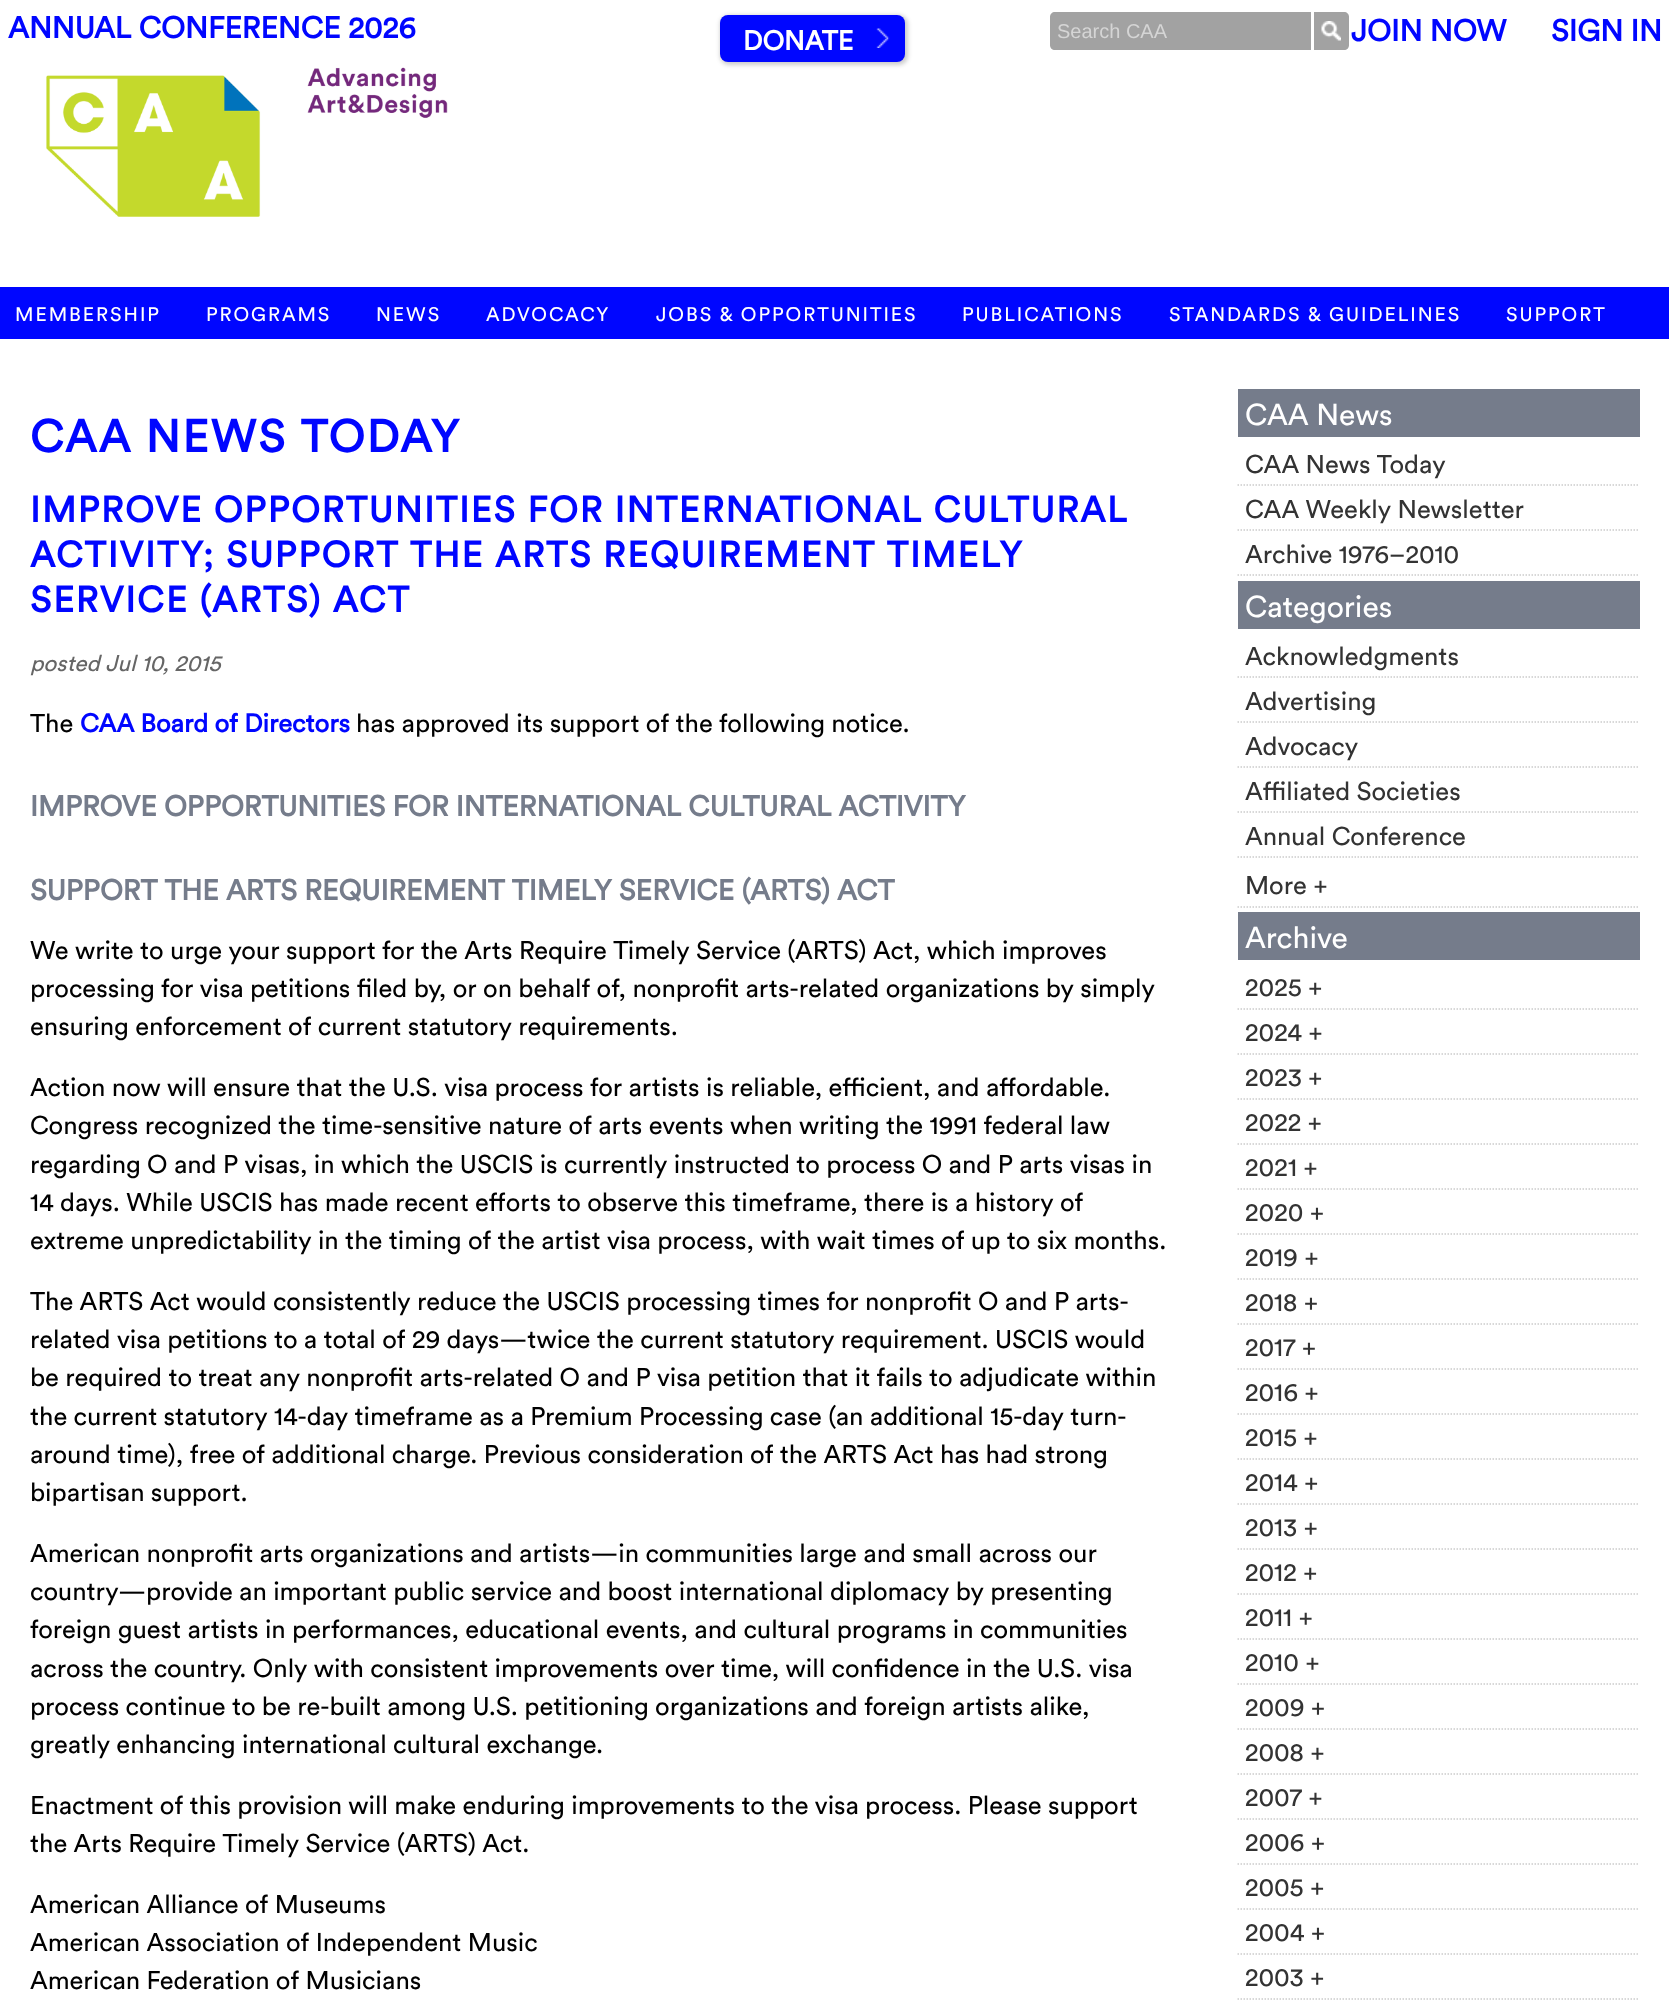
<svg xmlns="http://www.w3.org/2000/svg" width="1669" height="2004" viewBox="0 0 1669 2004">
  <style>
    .t1 { font: bold 30px Circular; fill: #0006ff; }
    .t2 { font: bold 27px Circular; fill: #fff; }
    .t3 { font: 20px Liberation Sans; fill: #d5d5d5; }
    .t4 { font: 19.5px Circular; letter-spacing: 1.95px; fill: #fff; }
    .t5 { font: bold 45px Circular; letter-spacing: 2.25px; fill: #0006ff; }
    .t6 { font: bold 36px Circular; letter-spacing: 1.8px; fill: #0006ff; }
    .t7 { font: italic 22.5px Circular; fill: #666; }
    .t8 { font: 25.5px Circular; fill: #000; }
    .t9 { font: bold 25.5px Circular; fill: #0006ff; }
    .t10 { font: bold 28.5px Circular; fill: #757c8b; }
    .t11 { font: 30px Circular; fill: #fff; }
    .t12 { font: 25.5px Circular; fill: #333; }
  </style>
  <rect width="100%" height="100%" fill="#fff"/>
  <text x="8" y="38" class="t1">ANNUAL CONFERENCE 2026</text>
  <image x="46" y="67" width="402" height="150" href="images/1.png"/>
  <rect x="720" y="15" width="188" height="50" rx="9" fill="#00000033" filter="blur(2px)"/>
  <rect x="720" y="15" width="185" height="47" rx="8" fill="#0006ff"/>
  <image x="876" y="28" width="14" height="20" href="images/2.png"/>
  <text x="743" y="50" class="t2">DONATE</text>
  <path d="M1055 12H1311V50H1055C1052 50 1050 48 1050 45V17C1050 14 1052 12 1055 12Z" fill="#a2a2a2"/>
  <text x="1057" y="38" class="t3">Search CAA</text>
  <path d="M1314 12H1344C1347 12 1349 14 1349 17V45C1349 48 1347 50 1344 50H1314Z" fill="#a2a2a2"/>
  <image x="1321" y="21" width="20" height="20" href="images/3.png"/>
  <text x="1351" y="41" class="t1">JOIN NOW</text>
  <text x="1551" y="41" class="t1">SIGN IN</text>
  <rect x="0" y="287" width="1669" height="52" fill="#0006ff"/>
  <text x="15" y="321" class="t4">MEMBERSHIP</text>
  <text x="206" y="321" class="t4">PROGRAMS</text>
  <text x="376" y="321" class="t4">NEWS</text>
  <text x="486" y="321" class="t4">ADVOCACY</text>
  <text x="656" y="321" class="t4">JOBS &amp; OPPORTUNITIES</text>
  <text x="962" y="321" class="t4">PUBLICATIONS</text>
  <text x="1169" y="321" class="t4">STANDARDS &amp; GUIDELINES</text>
  <text x="1506" y="321" class="t4">SUPPORT</text>
  <text x="30" y="452" class="t5">CAA NEWS TODAY</text>
  <text x="30" y="522" class="t6">IMPROVE OPPORTUNITIES FOR INTERNATIONAL CULTURAL</text>
  <text x="30" y="567" class="t6">ACTIVITY; SUPPORT THE ARTS REQUIREMENT TIMELY</text>
  <text x="30" y="612" class="t6">SERVICE (ARTS) ACT</text>
  <text x="30" y="671" class="t7">posted Jul 10, 2015</text>
  <text x="30" y="732" class="t8">The</text>
  <text x="80" y="732" class="t9">CAA Board of Directors</text>
  <text x="356" y="732" class="t8">has approved its support of the following notice.</text>
  <text x="30" y="816" class="t10">IMPROVE OPPORTUNITIES FOR INTERNATIONAL CULTURAL ACTIVITY</text>
  <text x="30" y="900" class="t10">SUPPORT THE ARTS REQUIREMENT TIMELY SERVICE (ARTS) ACT</text>
  <text x="30" y="959" class="t8">We write to urge your support for the Arts Require Timely Service (ARTS) Act, which improves</text>
  <text x="30" y="997" class="t8">processing for visa petitions filed by, or on behalf of, nonprofit arts-related organizations by simply</text>
  <text x="30" y="1035" class="t8">ensuring enforcement of current statutory requirements.</text>
  <text x="30" y="1096" class="t8">Action now will ensure that the U.S. visa process for artists is reliable, efficient, and affordable.</text>
  <text x="30" y="1134" class="t8">Congress recognized the time-sensitive nature of arts events when writing the 1991 federal law</text>
  <text x="30" y="1173" class="t8">regarding O and P visas, in which the USCIS is currently instructed to process O and P arts visas in</text>
  <text x="30" y="1211" class="t8">14 days. While USCIS has made recent efforts to observe this timeframe, there is a history of</text>
  <text x="30" y="1249" class="t8">extreme unpredictability in the timing of the artist visa process, with wait times of up to six months.</text>
  <text x="30" y="1310" class="t8">The ARTS Act would consistently reduce the USCIS processing times for nonprofit O and P arts-</text>
  <text x="30" y="1348" class="t8">related visa petitions to a total of 29 days—twice the current statutory requirement. USCIS would</text>
  <text x="30" y="1386" class="t8">be required to treat any nonprofit arts-related O and P visa petition that it fails to adjudicate within</text>
  <text x="30" y="1425" class="t8">the current statutory 14-day timeframe as a Premium Processing case (an additional 15-day turn-</text>
  <text x="30" y="1463" class="t8">around time), free of additional charge. Previous consideration of the ARTS Act has had strong</text>
  <text x="30" y="1501" class="t8">bipartisan support.</text>
  <text x="30" y="1562" class="t8">American nonprofit arts organizations and artists—in communities large and small across our</text>
  <text x="30" y="1600" class="t8">country—provide an important public service and boost international diplomacy by presenting</text>
  <text x="30" y="1638" class="t8">foreign guest artists in performances, educational events, and cultural programs in communities</text>
  <text x="30" y="1677" class="t8">across the country. Only with consistent improvements over time, will confidence in the U.S. visa</text>
  <text x="30" y="1715" class="t8">process continue to be re-built among U.S. petitioning organizations and foreign artists alike,</text>
  <text x="30" y="1753" class="t8">greatly enhancing international cultural exchange.</text>
  <text x="30" y="1814" class="t8">Enactment of this provision will make enduring improvements to the visa process. Please support</text>
  <text x="30" y="1852" class="t8">the Arts Require Timely Service (ARTS) Act.</text>
  <text x="30" y="1913" class="t8">American Alliance of Museums</text>
  <text x="30" y="1951" class="t8">American Association of Independent Music</text>
  <text x="30" y="1989" class="t8">American Federation of Musicians</text>
  <rect x="1238" y="389" width="402" height="48" fill="#757c8b"/>
  <text x="1245" y="425" class="t11">CAA News</text>
  <path d="M1237.5 485H1639.5" fill="none" stroke="#ccc" stroke-width="1.5" stroke-dasharray="1.5 1.5"/>
  <text x="1245" y="473" class="t12">CAA News Today</text>
  <path d="M1237.5 530H1639.5" fill="none" stroke="#ccc" stroke-width="1.5" stroke-dasharray="1.5 1.5"/>
  <text x="1245" y="518" class="t12">CAA Weekly Newsletter</text>
  <path d="M1237.5 575H1639.5" fill="none" stroke="#ccc" stroke-width="1.5" stroke-dasharray="1.5 1.5"/>
  <text x="1245" y="563" class="t12">Archive 1976–2010</text>
  <rect x="1238" y="581" width="402" height="48" fill="#757c8b"/>
  <text x="1245" y="617" class="t11">Categories</text>
  <path d="M1237.5 677H1639.5" fill="none" stroke="#ccc" stroke-width="1.5" stroke-dasharray="1.5 1.5"/>
  <text x="1245" y="665" class="t12">Acknowledgments</text>
  <path d="M1237.5 722H1639.5" fill="none" stroke="#ccc" stroke-width="1.5" stroke-dasharray="1.5 1.5"/>
  <text x="1245" y="710" class="t12">Advertising</text>
  <path d="M1237.5 767H1639.5" fill="none" stroke="#ccc" stroke-width="1.5" stroke-dasharray="1.5 1.5"/>
  <text x="1245" y="755" class="t12">Advocacy</text>
  <path d="M1237.5 812H1639.5" fill="none" stroke="#ccc" stroke-width="1.5" stroke-dasharray="1.5 1.5"/>
  <text x="1245" y="800" class="t12">Affiliated Societies</text>
  <path d="M1237.5 857H1639.5" fill="none" stroke="#ccc" stroke-width="1.5" stroke-dasharray="1.5 1.5"/>
  <text x="1245" y="845" class="t12">Annual Conference</text>
  <path d="M1237.5 907H1639.5" fill="none" stroke="#ccc" stroke-width="1.5" stroke-dasharray="1.5 1.5"/>
  <text x="1245" y="894" class="t12">More +</text>
  <rect x="1238" y="912" width="402" height="48" fill="#757c8b"/>
  <text x="1245" y="948" class="t11">Archive</text>
  <path d="M1237.5 1009H1639.5" fill="none" stroke="#ccc" stroke-width="1.5" stroke-dasharray="1.5 1.5"/>
  <text x="1245" y="996" class="t12">2025 +</text>
  <path d="M1237.5 1054H1639.5" fill="none" stroke="#ccc" stroke-width="1.5" stroke-dasharray="1.5 1.5"/>
  <text x="1245" y="1041" class="t12">2024 +</text>
  <path d="M1237.5 1099H1639.5" fill="none" stroke="#ccc" stroke-width="1.5" stroke-dasharray="1.5 1.5"/>
  <text x="1245" y="1086" class="t12">2023 +</text>
  <path d="M1237.5 1144H1639.5" fill="none" stroke="#ccc" stroke-width="1.5" stroke-dasharray="1.5 1.5"/>
  <text x="1245" y="1131" class="t12">2022 +</text>
  <path d="M1237.5 1189H1639.5" fill="none" stroke="#ccc" stroke-width="1.5" stroke-dasharray="1.5 1.5"/>
  <text x="1245" y="1176" class="t12">2021 +</text>
  <path d="M1237.5 1234H1639.5" fill="none" stroke="#ccc" stroke-width="1.5" stroke-dasharray="1.5 1.5"/>
  <text x="1245" y="1221" class="t12">2020 +</text>
  <path d="M1237.5 1279H1639.5" fill="none" stroke="#ccc" stroke-width="1.5" stroke-dasharray="1.5 1.5"/>
  <text x="1245" y="1266" class="t12">2019 +</text>
  <path d="M1237.5 1324H1639.5" fill="none" stroke="#ccc" stroke-width="1.5" stroke-dasharray="1.5 1.5"/>
  <text x="1245" y="1311" class="t12">2018 +</text>
  <path d="M1237.5 1369H1639.5" fill="none" stroke="#ccc" stroke-width="1.5" stroke-dasharray="1.5 1.5"/>
  <text x="1245" y="1356" class="t12">2017 +</text>
  <path d="M1237.5 1414H1639.5" fill="none" stroke="#ccc" stroke-width="1.5" stroke-dasharray="1.5 1.5"/>
  <text x="1245" y="1401" class="t12">2016 +</text>
  <path d="M1237.5 1459H1639.5" fill="none" stroke="#ccc" stroke-width="1.5" stroke-dasharray="1.5 1.5"/>
  <text x="1245" y="1446" class="t12">2015 +</text>
  <path d="M1237.5 1504H1639.5" fill="none" stroke="#ccc" stroke-width="1.5" stroke-dasharray="1.5 1.5"/>
  <text x="1245" y="1491" class="t12">2014 +</text>
  <path d="M1237.5 1549H1639.5" fill="none" stroke="#ccc" stroke-width="1.5" stroke-dasharray="1.5 1.5"/>
  <text x="1245" y="1536" class="t12">2013 +</text>
  <path d="M1237.5 1594H1639.5" fill="none" stroke="#ccc" stroke-width="1.5" stroke-dasharray="1.5 1.5"/>
  <text x="1245" y="1581" class="t12">2012 +</text>
  <path d="M1237.5 1639H1639.5" fill="none" stroke="#ccc" stroke-width="1.5" stroke-dasharray="1.5 1.5"/>
  <text x="1245" y="1626" class="t12">2011 +</text>
  <path d="M1237.5 1684H1639.5" fill="none" stroke="#ccc" stroke-width="1.5" stroke-dasharray="1.5 1.5"/>
  <text x="1245" y="1671" class="t12">2010 +</text>
  <path d="M1237.5 1729H1639.5" fill="none" stroke="#ccc" stroke-width="1.5" stroke-dasharray="1.5 1.5"/>
  <text x="1245" y="1716" class="t12">2009 +</text>
  <path d="M1237.5 1774H1639.5" fill="none" stroke="#ccc" stroke-width="1.5" stroke-dasharray="1.5 1.5"/>
  <text x="1245" y="1761" class="t12">2008 +</text>
  <path d="M1237.5 1819H1639.5" fill="none" stroke="#ccc" stroke-width="1.5" stroke-dasharray="1.5 1.5"/>
  <text x="1245" y="1806" class="t12">2007 +</text>
  <path d="M1237.5 1864H1639.5" fill="none" stroke="#ccc" stroke-width="1.5" stroke-dasharray="1.5 1.5"/>
  <text x="1245" y="1851" class="t12">2006 +</text>
  <path d="M1237.5 1909H1639.5" fill="none" stroke="#ccc" stroke-width="1.5" stroke-dasharray="1.5 1.5"/>
  <text x="1245" y="1896" class="t12">2005 +</text>
  <path d="M1237.5 1954H1639.5" fill="none" stroke="#ccc" stroke-width="1.5" stroke-dasharray="1.5 1.5"/>
  <text x="1245" y="1941" class="t12">2004 +</text>
  <path d="M1237.5 1999H1639.5" fill="none" stroke="#ccc" stroke-width="1.5" stroke-dasharray="1.5 1.5"/>
  <text x="1245" y="1986" class="t12">2003 +</text>
</svg>
